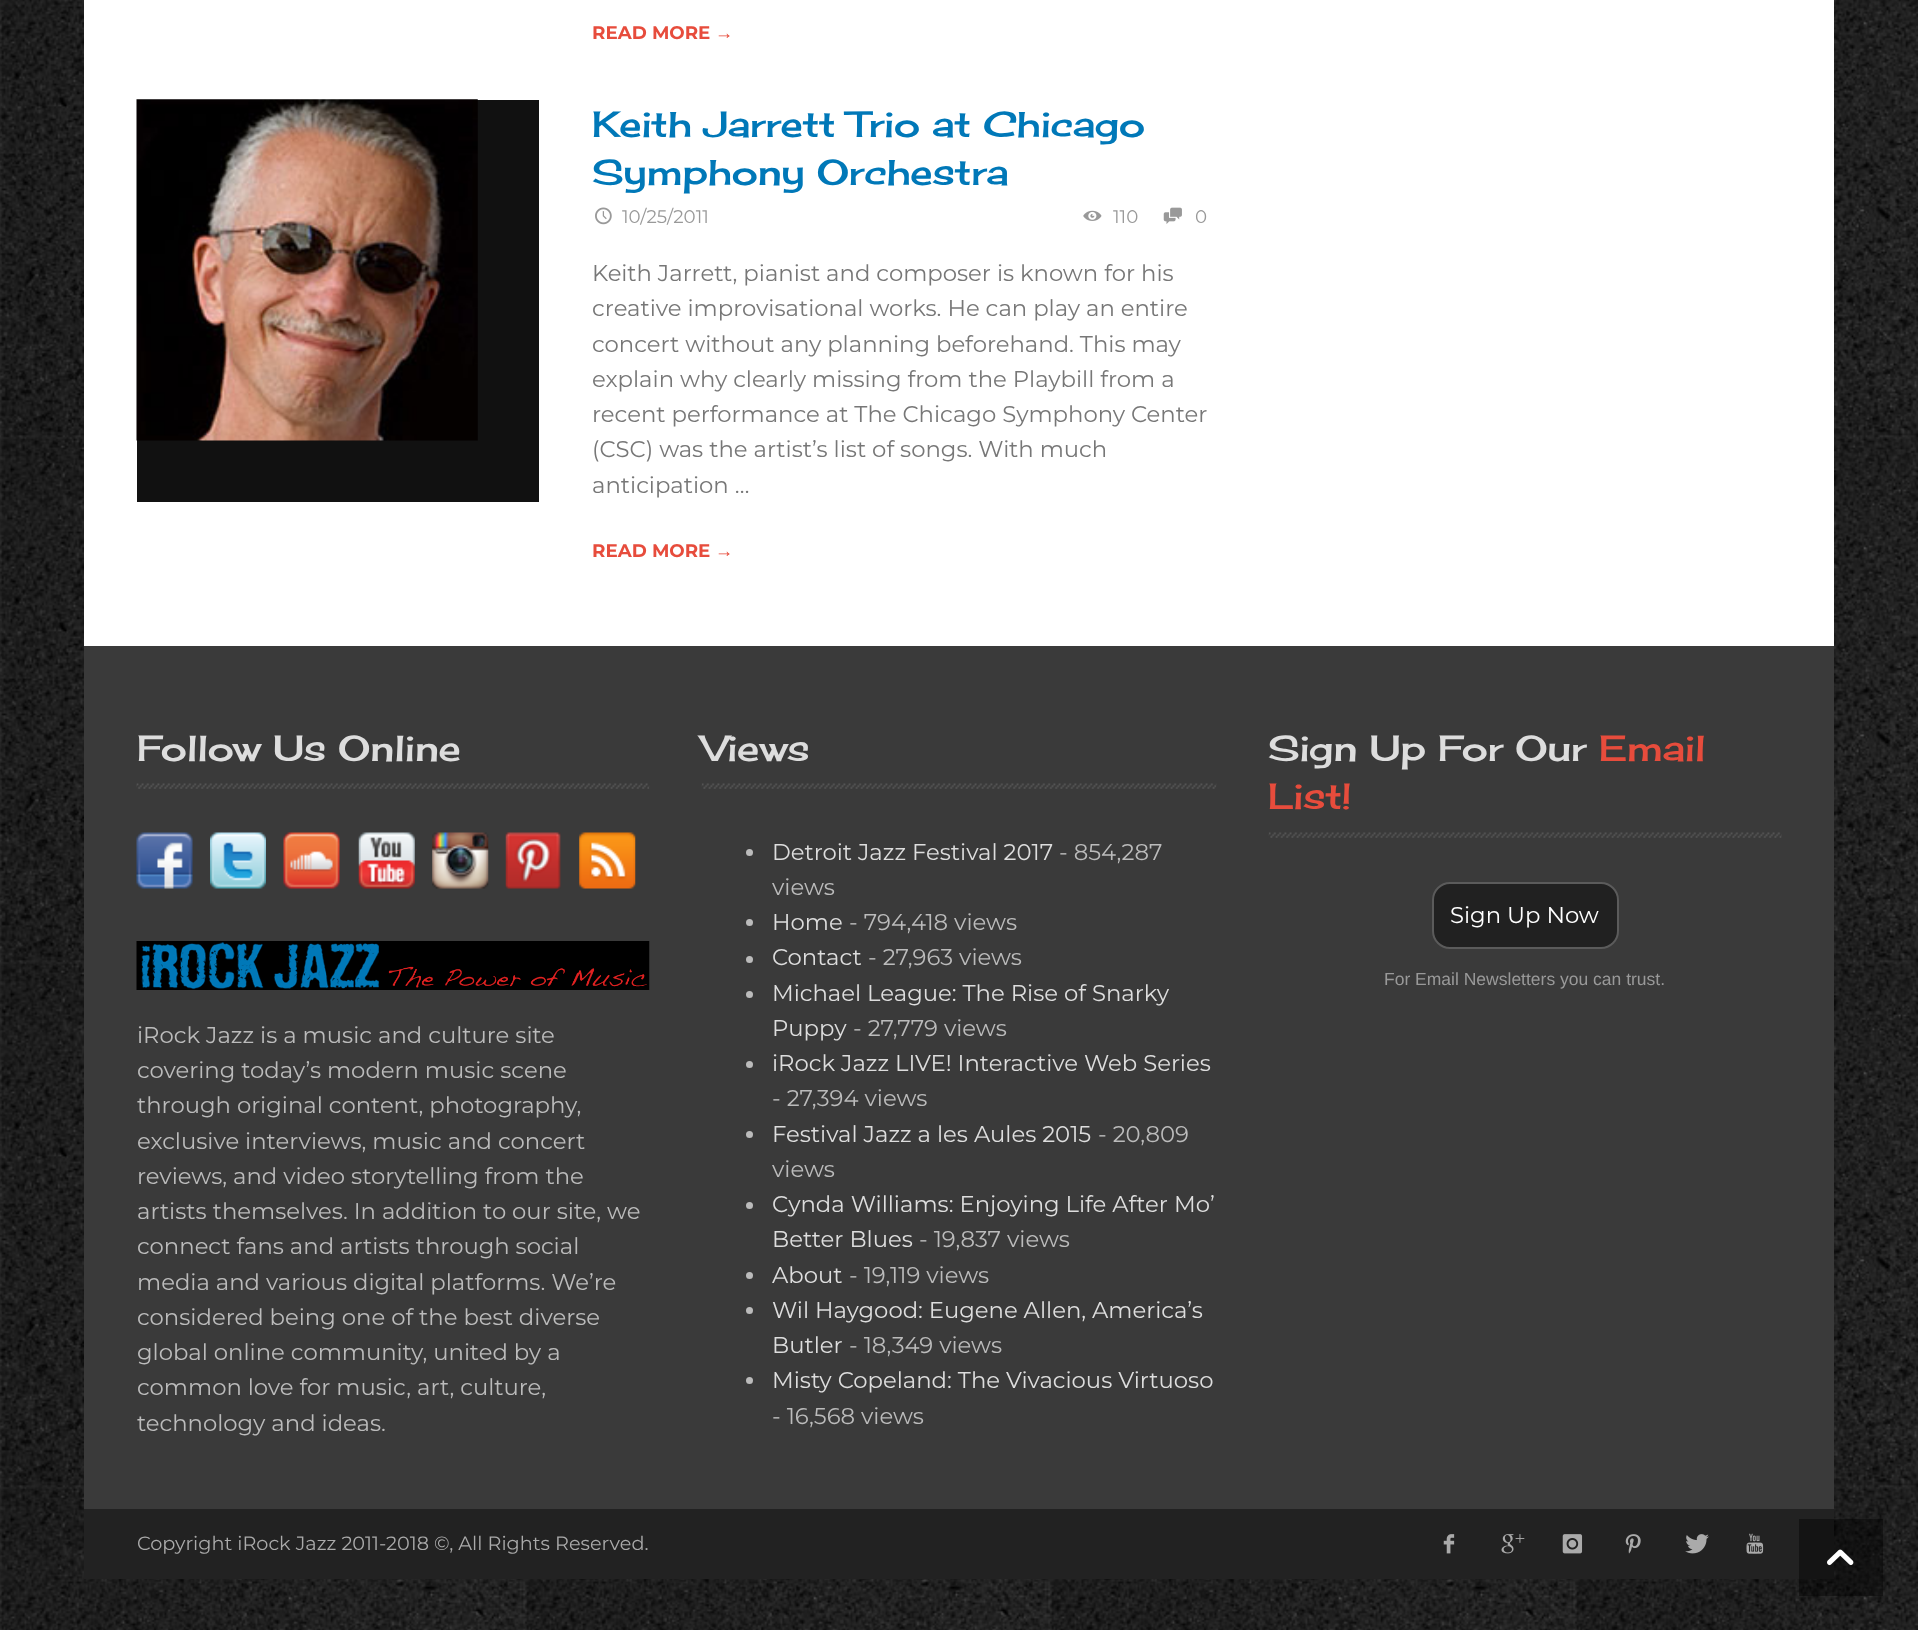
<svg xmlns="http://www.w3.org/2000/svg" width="1918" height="1630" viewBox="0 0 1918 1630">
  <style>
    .t1 { font: bold 18.25px Montserrat; fill: #e74c3c; }
    .t2 { font: bold 18.25px Liberation Sans; fill: #e74c3c; }
    .t3 { font: 35.5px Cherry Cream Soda; fill: #0078b8; }
    .t4 { font: 18.25px Montserrat; fill: #999; }
    .t5 { font: 22.75px Montserrat; fill: #777; }
    .t6 { font: 35.5px Cherry Cream Soda; fill: #ddd; }
    .t7 { font: 22.75px Montserrat; fill: #bbb; }
    .t8 { font: 22.75px Montserrat; fill: #ddd; }
    .t9 { font: 35.5px Cherry Cream Soda; fill: #e74c3c; }
    .t10 { font: 22.75px Montserrat; fill: #fff; }
    .t11 { font: 17.5px Liberation Sans; fill: #999; }
    .t12 { font: 19.25px Montserrat; fill: #aaa; }
  </style>
  <rect width="100%" height="100%" fill="#fff"/>
  <image x="0" y="0" width="1918" height="1630" href="images/1.png"/>
  <rect x="84" y="0" width="1750" height="646" fill="#fff"/>
  <text x="592" y="39" class="t1">READ MORE</text>
  <text x="715" y="39" class="t2">→</text>
  <rect x="137" y="100" width="402" height="402" fill="#111"/>
  <image x="136" y="99" width="342" height="342" href="images/2.png"/>
  <text x="592" y="137" class="t3">Keith Jarrett Trio at Chicago</text>
  <text x="592" y="185" class="t3">Symphony Orchestra</text>
  <image x="595" y="207" width="17" height="18" href="images/3.png"/>
  <text x="622" y="223" class="t4">10/25/2011</text>
  <image x="1083" y="210" width="19" height="11" href="images/4.png"/>
  <text x="1113" y="223" class="t4">110</text>
  <image x="1163" y="207" width="19" height="17" href="images/5.png"/>
  <text x="1195" y="223" class="t4">0</text>
  <text x="592" y="281" class="t5">Keith Jarrett, pianist and composer is known for his</text>
  <text x="592" y="316" class="t5">creative improvisational works. He can play an entire</text>
  <text x="592" y="352" class="t5">concert without any planning beforehand. This may</text>
  <text x="592" y="387" class="t5">explain why clearly missing from the Playbill from a</text>
  <text x="592" y="422" class="t5">recent performance at The Chicago Symphony Center</text>
  <text x="592" y="457" class="t5">(CSC) was the artist’s list of songs. With much</text>
  <text x="592" y="493" class="t5">anticipation …</text>
  <text x="592" y="557" class="t1">READ MORE</text>
  <text x="715" y="557" class="t2">→</text>
  <rect x="84" y="646" width="1750" height="863" fill="#3a3a3a"/>
  <text x="137" y="761" class="t6">Follow Us Online</text>
  <image x="136" y="783" width="514" height="6" href="images/6.png"/>
  <image x="136" y="832" width="57" height="57" href="images/7.png"/>
  <image x="210" y="832" width="56" height="57" href="images/8.png"/>
  <image x="283" y="832" width="57" height="57" href="images/9.png"/>
  <image x="358" y="832" width="57" height="57" href="images/10.png"/>
  <image x="432" y="832" width="57" height="57" href="images/11.png"/>
  <image x="505" y="832" width="56" height="57" href="images/12.png"/>
  <image x="579" y="832" width="57" height="57" href="images/13.png"/>
  <image x="136" y="941" width="514" height="49" href="images/14.png"/>
  <text x="137" y="1043" class="t7">iRock Jazz is a music and culture site</text>
  <text x="137" y="1078" class="t7">covering today’s modern music scene</text>
  <text x="137" y="1113" class="t7">through original content, photography,</text>
  <text x="137" y="1149" class="t7">exclusive interviews, music and concert</text>
  <text x="137" y="1184" class="t7">reviews, and video storytelling from the</text>
  <text x="137" y="1219" class="t7">artists themselves. In addition to our site, we</text>
  <text x="137" y="1254" class="t7">connect fans and artists through social</text>
  <text x="137" y="1290" class="t7">media and various digital platforms. We’re</text>
  <text x="137" y="1325" class="t7">considered being one of the best diverse</text>
  <text x="137" y="1360" class="t7">global online community, united by a</text>
  <text x="137" y="1395" class="t7">common love for music, art, culture,</text>
  <text x="137" y="1431" class="t7">technology and ideas.</text>
  <text x="702" y="761" class="t6">Views</text>
  <image x="701" y="783" width="516" height="6" href="images/15.png"/>
  <circle cx="749.5" cy="852.5" r="3.5" fill="#bbb"/>
  <text x="772" y="860" class="t8">Detroit Jazz Festival 2017</text>
  <text x="1059" y="860" class="t7">- 854,287</text>
  <text x="772" y="895" class="t7">views</text>
  <circle cx="749.5" cy="922.5" r="3.5" fill="#bbb"/>
  <text x="772" y="930" class="t8">Home</text>
  <text x="849" y="930" class="t7">- 794,418 views</text>
  <circle cx="749.5" cy="959.5" r="3.5" fill="#bbb"/>
  <text x="772" y="965" class="t8">Contact</text>
  <text x="868" y="965" class="t7">- 27,963 views</text>
  <circle cx="749.5" cy="994.5" r="3.5" fill="#bbb"/>
  <text x="772" y="1001" class="t8">Michael League: The Rise of Snarky</text>
  <text x="772" y="1036" class="t8">Puppy</text>
  <text x="853" y="1036" class="t7">- 27,779 views</text>
  <circle cx="749.5" cy="1064.5" r="3.5" fill="#bbb"/>
  <text x="772" y="1071" class="t8">iRock Jazz LIVE! Interactive Web Series</text>
  <text x="772" y="1106" class="t7">- 27,394 views</text>
  <circle cx="749.5" cy="1134.5" r="3.5" fill="#bbb"/>
  <text x="772" y="1142" class="t8">Festival Jazz a les Aules 2015</text>
  <text x="1098" y="1142" class="t7">- 20,809</text>
  <text x="772" y="1177" class="t7">views</text>
  <circle cx="749.5" cy="1205.5" r="3.5" fill="#bbb"/>
  <text x="772" y="1212" class="t8">Cynda Williams: Enjoying Life After Mo’</text>
  <text x="772" y="1247" class="t8">Better Blues</text>
  <text x="919" y="1247" class="t7">- 19,837 views</text>
  <circle cx="749.5" cy="1275.5" r="3.5" fill="#bbb"/>
  <text x="772" y="1283" class="t8">About</text>
  <text x="849" y="1283" class="t7">- 19,119 views</text>
  <circle cx="749.5" cy="1310.5" r="3.5" fill="#bbb"/>
  <text x="772" y="1318" class="t8">Wil Haygood: Eugene Allen, America’s</text>
  <text x="772" y="1353" class="t8">Butler</text>
  <text x="849" y="1353" class="t7">- 18,349 views</text>
  <circle cx="749.5" cy="1380.5" r="3.5" fill="#bbb"/>
  <text x="772" y="1388" class="t8">Misty Copeland: The Vivacious Virtuoso</text>
  <text x="772" y="1424" class="t7">- 16,568 views</text>
  <text x="1268" y="761" class="t6">Sign Up For Our</text>
  <text x="1599" y="761" class="t9">Email</text>
  <text x="1268" y="809" class="t9">List!</text>
  <image x="1268" y="832" width="514" height="6" href="images/16.png"/>
  <rect x="1433" y="883" width="185" height="65" rx="17" fill="#212121" stroke="#5b5b5b" stroke-width="2"/>
  <text x="1450" y="923" class="t10">Sign Up Now</text>
  <text x="1384" y="985" class="t11">For Email Newsletters you can trust.</text>
  <rect x="84" y="1509" width="1750" height="70" fill="#222"/>
  <text x="137" y="1550" class="t12">Copyright iRock Jazz 2011-2018 ©, All Rights Reserved.</text>
  <image x="1443" y="1534" width="12" height="20" href="images/17.png"/>
  <image x="1501" y="1534" width="24" height="20" href="images/18.png"/>
  <image x="1562" y="1534" width="21" height="20" href="images/19.png"/>
  <image x="1625" y="1534" width="16" height="20" href="images/20.png"/>
  <image x="1685" y="1534" width="24" height="20" href="images/21.png"/>
  <image x="1746" y="1533" width="18" height="21" href="images/22.png"/>
  <rect x="1799" y="1519" width="84" height="77" fill="#00000066"/>
  <image x="1827" y="1549" width="27" height="17" href="images/23.png"/>
</svg>
